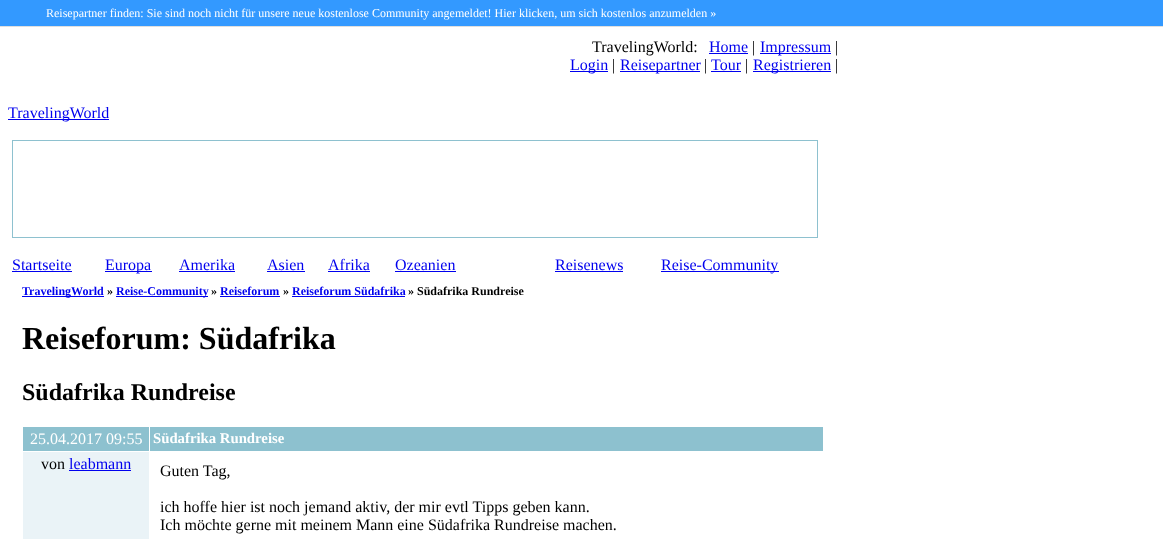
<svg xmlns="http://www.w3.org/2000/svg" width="1163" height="539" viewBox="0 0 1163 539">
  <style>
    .t1 { font: 12px Liberation Serif; fill: #fff; }
    .t2 { font: 16px Liberation Serif; fill: #000; }
    .t3 { font: 16px Liberation Serif; fill: #00e; }
    .t4 { font: bold 12px Liberation Serif; fill: #00e; }
    .t5 { font: bold 12px Liberation Serif; fill: #000; }
    .t6 { font: bold 32px Liberation Serif; fill: #000; }
    .t7 { font: bold 24px Liberation Serif; fill: #000; }
    .t8 { font: 16px Liberation Serif; fill: #fff; }
    .t9 { font: bold 14.75px Liberation Serif; fill: #fff; }
  </style>
  <rect width="100%" height="100%" fill="#fff"/>
  <rect x="0" y="0" width="1163" height="26" fill="#39f"/>
  <rect x="0" y="26" width="1163" height="1" fill="#dfdfdf"/>
  <text x="46" y="17" class="t1">Reisepartner finden: Sie sind noch nicht für unsere neue kostenlose Community angemeldet! Hier klicken, um sich kostenlos anzumelden »</text>
  <text x="592" y="52" class="t2">TravelingWorld:</text>
  <text x="709" y="52" class="t3">Home</text>
  <rect x="709" y="53" width="39" height="1" fill="#00e"/>
  <text x="752" y="52" class="t2">|</text>
  <rect x="760" y="53" width="71" height="1" fill="#00e"/>
  <text x="760" y="52" class="t3">Impressum</text>
  <text x="835" y="52" class="t2">|</text>
  <rect x="570" y="71" width="38" height="1" fill="#00e"/>
  <text x="570" y="70" class="t3">Login</text>
  <text x="612" y="70" class="t2">|</text>
  <rect x="620" y="71" width="80" height="1" fill="#00e"/>
  <text x="620" y="70" class="t3">Reisepartner</text>
  <text x="704" y="70" class="t2">|</text>
  <text x="711" y="70" class="t3">Tour</text>
  <rect x="711" y="71" width="30" height="1" fill="#00e"/>
  <text x="745" y="70" class="t2">|</text>
  <rect x="753" y="71" width="78" height="1" fill="#00e"/>
  <text x="753" y="70" class="t3">Registrieren</text>
  <text x="835" y="70" class="t2">|</text>
  <rect x="8" y="119" width="101" height="1" fill="#00e"/>
  <text x="8" y="118" class="t3">TravelingWorld</text>
  <rect x="12.5" y="140.5" width="805" height="97" fill="none" stroke="#8ec1cf"/>
  <text x="12" y="270" class="t3">Startseite</text>
  <rect x="12" y="271" width="60" height="1" fill="#00e"/>
  <rect x="105" y="271" width="47" height="1" fill="#00e"/>
  <text x="105" y="270" class="t3">Europa</text>
  <text x="179" y="270" class="t3">Amerika</text>
  <rect x="179" y="271" width="56" height="1" fill="#00e"/>
  <text x="267" y="270" class="t3">Asien</text>
  <rect x="267" y="271" width="38" height="1" fill="#00e"/>
  <text x="328" y="270" class="t3">Afrika</text>
  <rect x="328" y="271" width="42" height="1" fill="#00e"/>
  <text x="395" y="270" class="t3">Ozeanien</text>
  <rect x="395" y="271" width="61" height="1" fill="#00e"/>
  <text x="555" y="270" class="t3">Reisenews</text>
  <rect x="555" y="271" width="68" height="1" fill="#00e"/>
  <rect x="661" y="271" width="118" height="1" fill="#00e"/>
  <text x="661" y="270" class="t3">Reise-Community</text>
  <rect x="22" y="296" width="82" height="1" fill="#00e"/>
  <text x="22" y="295" class="t4">TravelingWorld</text>
  <text x="107" y="295" class="t5">»</text>
  <rect x="116" y="296" width="92" height="1" fill="#00e"/>
  <text x="116" y="295" class="t4">Reise-Community</text>
  <text x="211" y="295" class="t5">»</text>
  <text x="220" y="295" class="t4">Reiseforum</text>
  <rect x="220" y="296" width="60" height="1" fill="#00e"/>
  <text x="283" y="295" class="t5">»</text>
  <text x="292" y="295" class="t4">Reiseforum Südafrika</text>
  <rect x="292" y="296" width="113" height="1" fill="#00e"/>
  <text x="408" y="295" class="t5">» Südafrika Rundreise</text>
  <text x="22" y="349" class="t6">Reiseforum: Südafrika</text>
  <text x="22" y="400" class="t7">Südafrika Rundreise</text>
  <rect x="23" y="427" width="126" height="24" fill="#8dc1cf"/>
  <text x="30" y="444" class="t8">25.04.2017 09:55</text>
  <rect x="150" y="427" width="673" height="24" fill="#8dc1cf"/>
  <text x="153" y="443" class="t9">Südafrika Rundreise</text>
  <rect x="23" y="452" width="126" height="87" fill="#eaf3f7"/>
  <text x="41" y="469" class="t2">von</text>
  <text x="69" y="469" class="t3">leabmann</text>
  <rect x="69" y="470" width="62" height="1" fill="#00e"/>
  <text x="160" y="476" class="t2">Guten Tag,</text>
  <text x="160" y="512" class="t2">ich hoffe hier ist noch jemand aktiv, der mir evtl Tipps geben kann.</text>
  <text x="160" y="530" class="t2">Ich möchte gerne mit meinem Mann eine Südafrika Rundreise machen.</text>
</svg>
